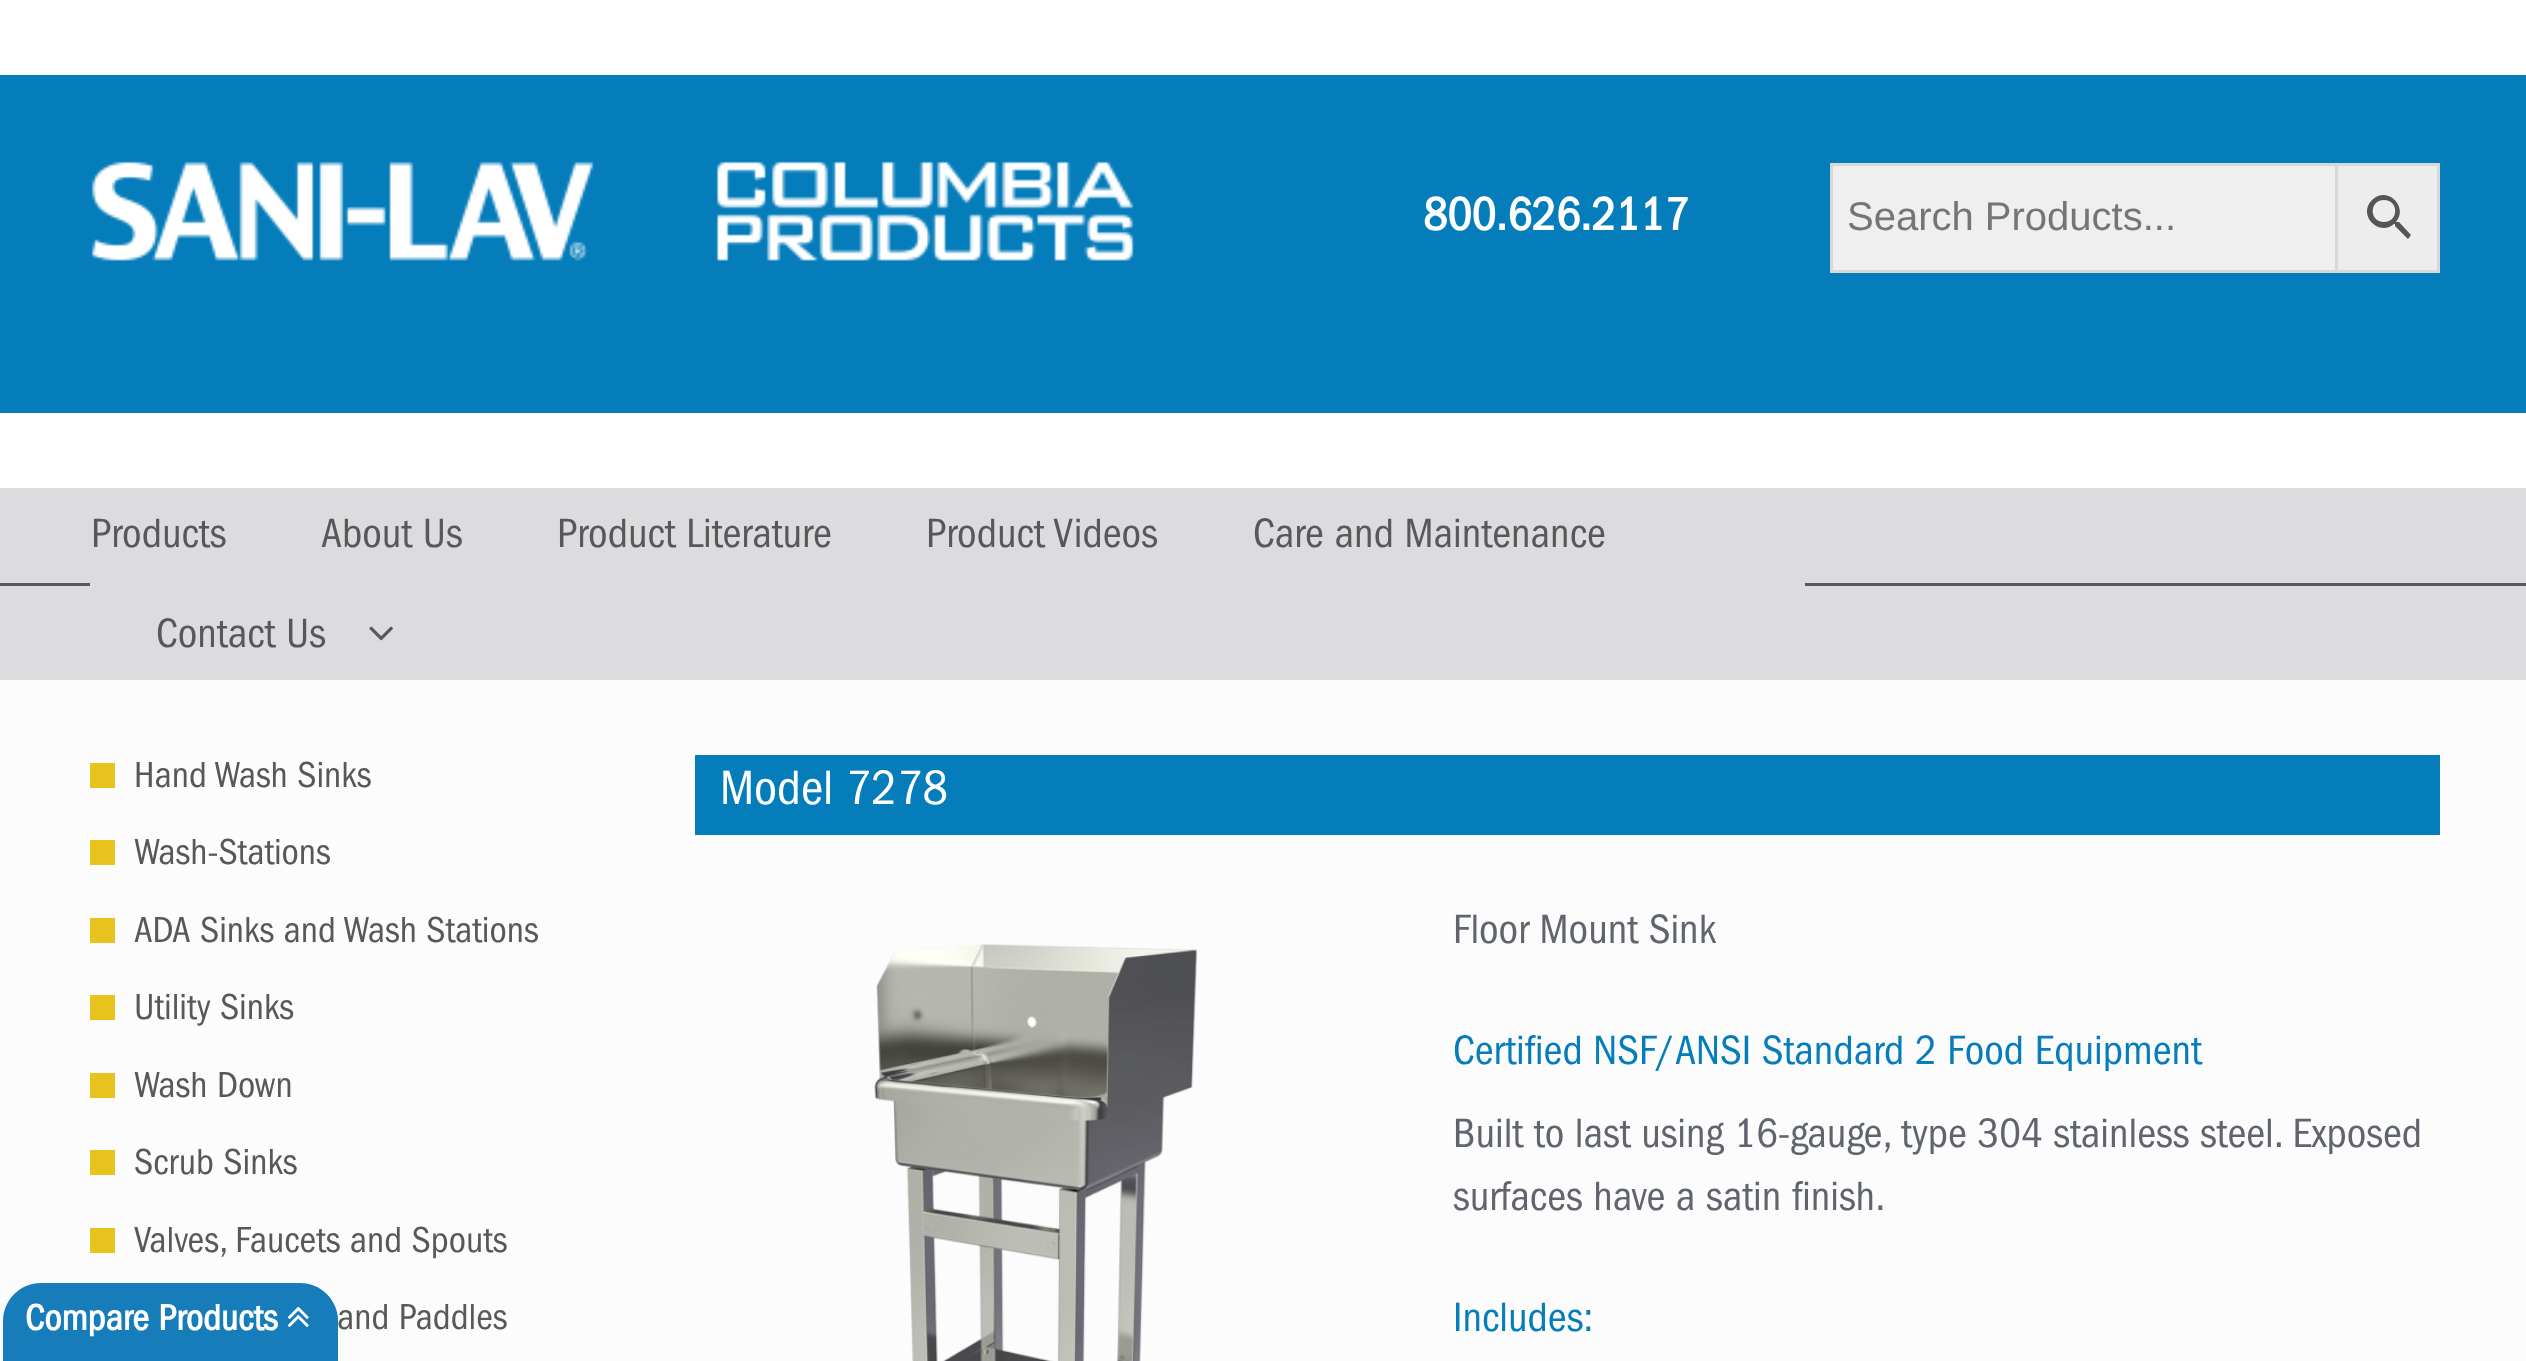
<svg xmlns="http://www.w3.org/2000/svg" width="2526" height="1361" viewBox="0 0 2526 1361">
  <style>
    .t1 { font: bold 47.5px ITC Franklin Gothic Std; fill: #fff; }
    .t2 { font: 40px Liberation Sans; fill: #757575; }
    .t3 { font: 42.5px ITC Franklin Gothic Std; fill: #57585a; }
    .t4 { font: 37.5px ITC Franklin Gothic Std; fill: #57585a; }
    .t5 { font: 50px ITC Franklin Gothic Std; fill: #fff; }
    .t6 { font: 42.5px ITC Franklin Gothic Std; fill: #60646c; }
    .t7 { font: 42.5px ITC Franklin Gothic Std; fill: #067dbb; }
    .t8 { font: bold 37.5px ITC Franklin Gothic Std; fill: #fff; }
  </style>
  <rect width="100%" height="100%" fill="#fcfcfc"/>
  <rect x="0" y="0" width="2526" height="488" fill="#fff"/>
  <rect x="0" y="75" width="2526" height="338" fill="#067dbb"/>
  <image x="91" y="161" width="1043" height="100" href="images/1.png"/>
  <text x="1423" y="230" class="t1">800.626.2117</text>
  <rect x="2336.5" y="164.5" width="102" height="107" fill="#ededed" stroke="#d8d8d8" stroke-width="3"/>
  <rect x="1831.5" y="164.5" width="505" height="107" fill="#efefef" stroke="#d8d8d8" stroke-width="3"/>
  <text x="1847" y="230" class="t2">Search Products...</text>
  <path d="M2399 222H2397H2396C2409 207 2387 185 2372 200C2357 215 2379 237 2394 224H2395V226L2408 239L2411 235ZM2384 222C2369 222 2369 200 2384 200C2399 200 2399 222 2384 222Z" fill="#555"/>
  <rect x="0" y="488" width="2526" height="192" fill="#dcdcde"/>
  <rect x="0" y="583" width="2526" height="3" fill="#58585a"/>
  <rect x="90" y="583" width="1715" height="3" fill="#dcdcde"/>
  <text x="91" y="547" class="t3">Products</text>
  <text x="321" y="547" class="t3">About Us</text>
  <text x="557" y="547" class="t3">Product Literature</text>
  <text x="926" y="547" class="t3">Product Videos</text>
  <text x="1253" y="547" class="t3">Care and Maintenance</text>
  <text x="156" y="647" class="t3">Contact Us</text>
  <image x="369" y="626" width="24" height="15" href="images/2.png"/>
  <rect x="90" y="763" width="25" height="25" fill="#e8c31d"/>
  <text x="134" y="787" class="t4">Hand Wash Sinks</text>
  <rect x="90" y="840" width="25" height="25" fill="#e8c31d"/>
  <text x="134" y="864" class="t4">Wash-Stations</text>
  <rect x="90" y="918" width="25" height="25" fill="#e8c31d"/>
  <text x="134" y="942" class="t4">ADA Sinks and Wash Stations</text>
  <rect x="90" y="995" width="25" height="25" fill="#e8c31d"/>
  <text x="134" y="1019" class="t4">Utility Sinks</text>
  <rect x="90" y="1073" width="25" height="25" fill="#e8c31d"/>
  <text x="134" y="1097" class="t4">Wash Down</text>
  <rect x="90" y="1150" width="25" height="25" fill="#e8c31d"/>
  <text x="134" y="1174" class="t4">Scrub Sinks</text>
  <rect x="90" y="1228" width="25" height="25" fill="#e8c31d"/>
  <text x="134" y="1252" class="t4">Valves, Faucets and Spouts</text>
  <text x="337" y="1329" class="t4">and Paddles</text>
  <rect x="695" y="755" width="1745" height="80" fill="#067dbb"/>
  <text x="720" y="804" class="t5">Model 7278</text>
  <image x="874" y="943" width="324" height="418" href="images/3.png"/>
  <text x="1453" y="943" class="t6">Floor Mount Sink</text>
  <text x="1453" y="1064" class="t7">Certified NSF/ANSI Standard 2 Food Equipment</text>
  <text x="1453" y="1147" class="t6">Built to last using 16-gauge, type 304 stainless steel. Exposed</text>
  <text x="1453" y="1210" class="t6">surfaces have a satin finish.</text>
  <text x="1453" y="1331" class="t7">Includes:</text>
  <path d="M41 1283H300C321 1283 338 1300 338 1321V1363H3V1321C3 1300 20 1283 41 1283Z" fill="#177cba"/>
  <text x="25" y="1330" class="t8">Compare Products</text>
  <image x="287" y="1306" width="22" height="21" href="images/4.png"/>
</svg>
